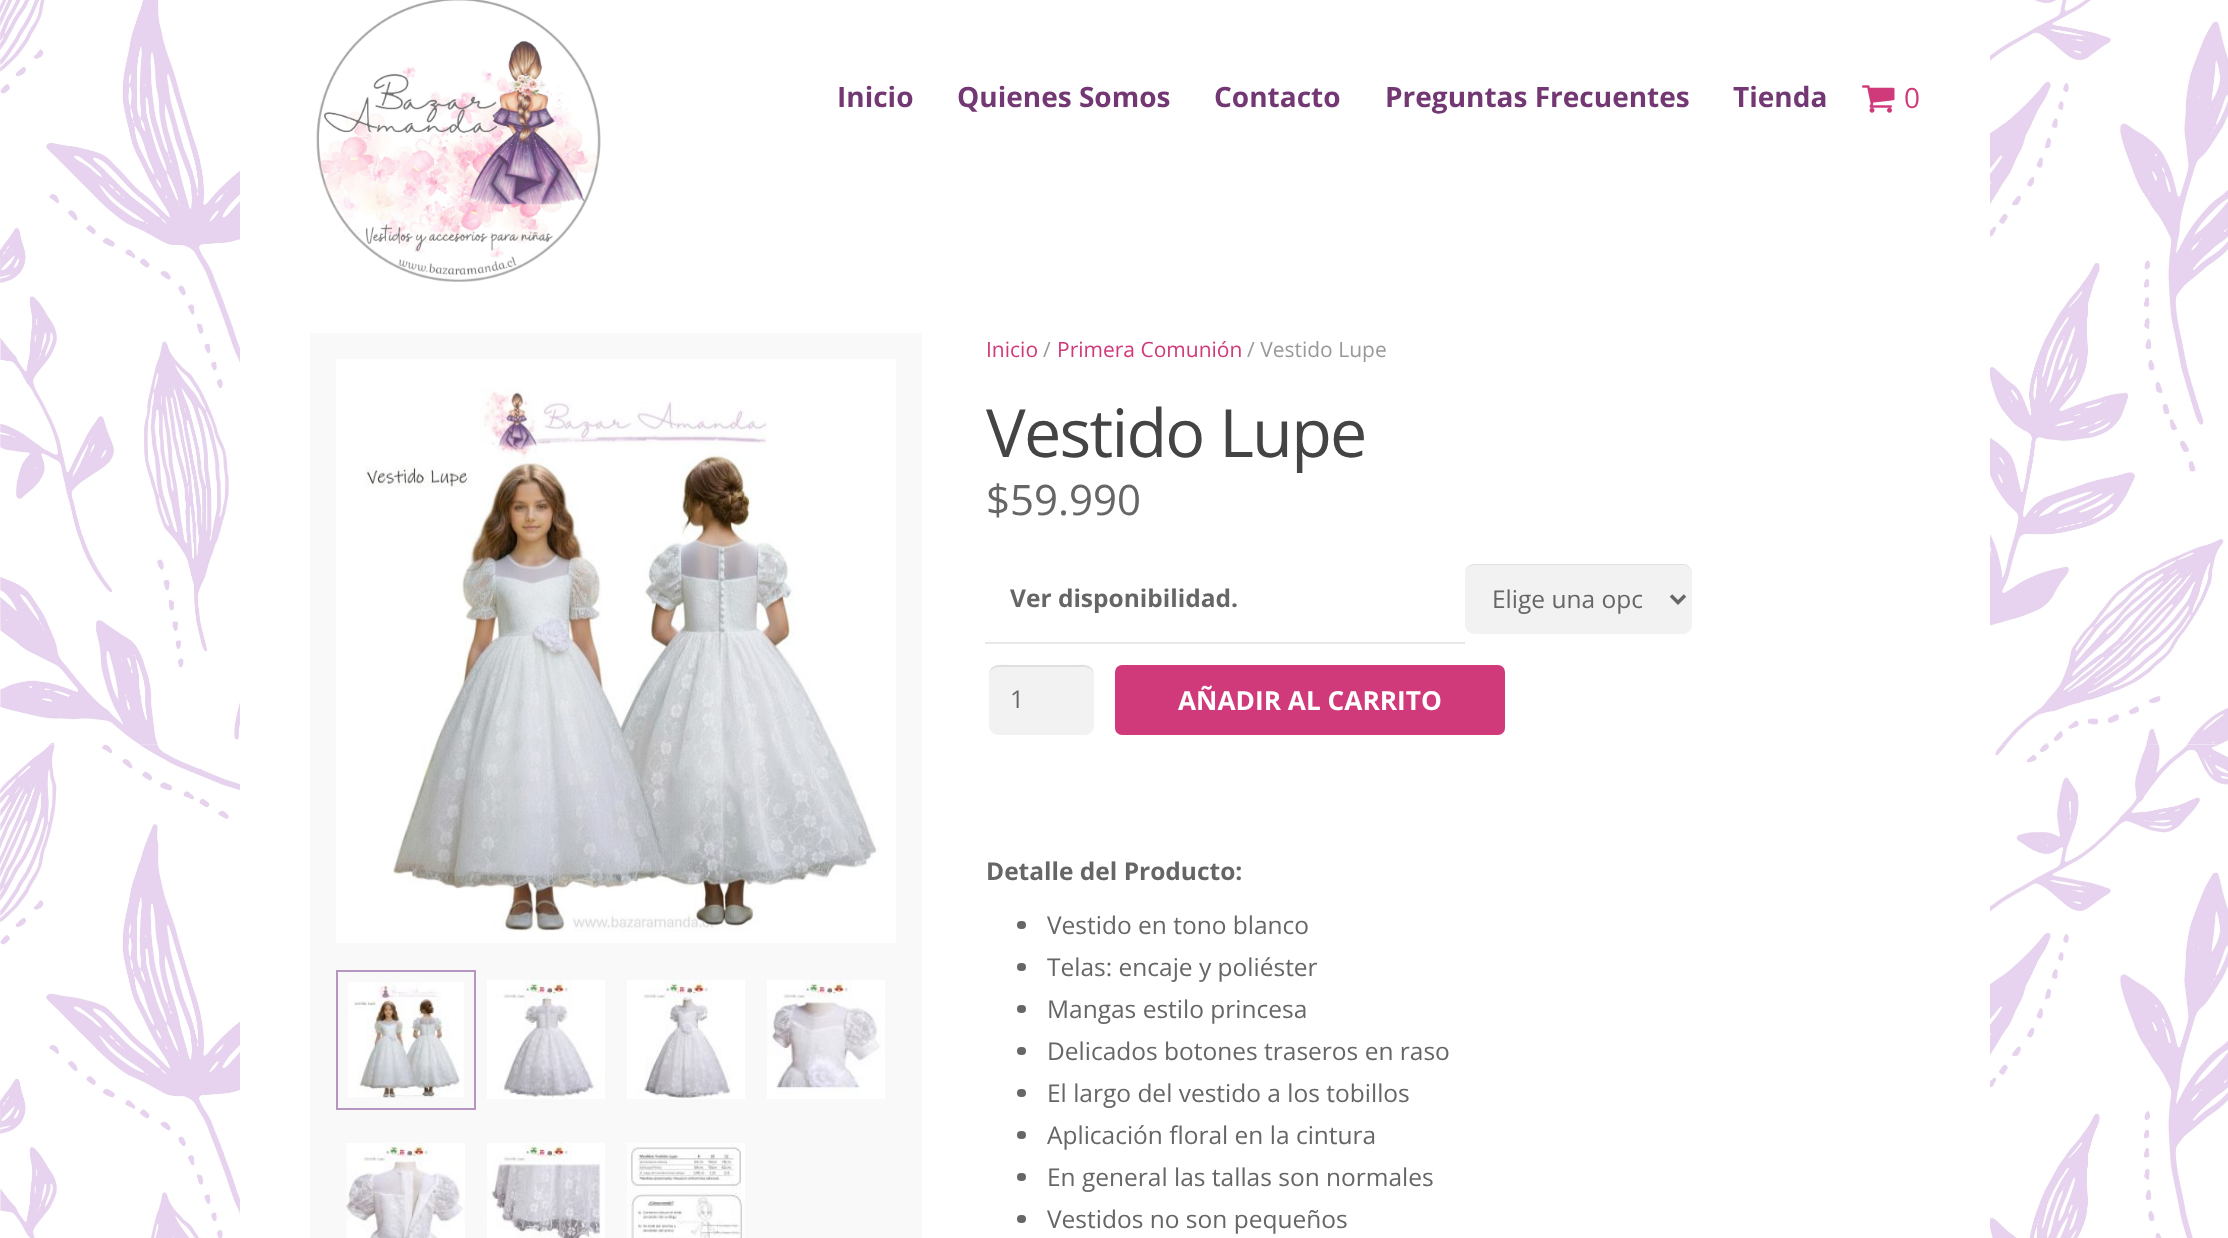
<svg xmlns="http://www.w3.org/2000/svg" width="2228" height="1238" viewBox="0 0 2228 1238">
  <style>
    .t1 { font: bold 28px Open Sans; fill: #733873; }
    .t2 { font: 28px Open Sans; fill: #d13a7a; }
    .t3 { font: 21px Open Sans; fill: #d13a7a; }
    .t4 { font: 21px Open Sans; fill: #999; }
    .t5 { font: 66.5px Open Sans; letter-spacing: -1.75px; fill: #444; }
    .t6 { font: 42px Open Sans; fill: #666; }
    .t7 { font: bold 24.5px Open Sans; fill: #666; }
    .t8 { font: 24.5px Open Sans; fill: #666; }
    .t9 { font: bold 26.25px Open Sans; fill: #fff; }
  </style>
  <rect width="100%" height="100%" fill="#fff"/>
  <image x="0" y="0" width="2228" height="1238" href="images/1.png"/>
  <rect x="240" y="0" width="1750" height="1238" fill="#fff"/>
  <image x="316" y="0" width="285" height="282" href="images/2.png"/>
  <text x="837" y="107" class="t1">Inicio</text>
  <text x="957" y="107" class="t1">Quienes Somos</text>
  <text x="1214" y="107" class="t1">Contacto</text>
  <text x="1385" y="107" class="t1">Preguntas Frecuentes</text>
  <text x="1733" y="107" class="t1">Tienda</text>
  <image x="1862" y="85" width="33" height="28" href="images/3.png"/>
  <text x="1904" y="108" class="t2">0</text>
  <rect x="310" y="333" width="612" height="905" fill="#f9f9f9"/>
  <image x="336" y="359" width="560" height="584" href="images/4.png"/>
  <rect x="337" y="971" width="138" height="138" fill="none" stroke="#b695c0" stroke-width="2"/>
  <image x="348" y="982" width="116" height="116" href="images/5.png"/>
  <image x="487" y="980" width="118" height="119" href="images/6.png"/>
  <image x="627" y="980" width="118" height="119" href="images/7.png"/>
  <image x="767" y="980" width="118" height="119" href="images/8.png"/>
  <image x="346" y="1143" width="119" height="95" href="images/9.png"/>
  <image x="487" y="1143" width="118" height="95" href="images/10.png"/>
  <image x="627" y="1143" width="118" height="95" href="images/11.png"/>
  <text x="986" y="357" class="t3">Inicio</text>
  <text x="1043" y="357" class="t4">/</text>
  <text x="1057" y="357" class="t3">Primera Comunión</text>
  <text x="1247" y="357" class="t4">/ Vestido Lupe</text>
  <text x="986" y="457" class="t5">Vestido Lupe</text>
  <text x="986" y="515" class="t6">$59.990</text>
  <rect x="985" y="642" width="480" height="2" fill="#e8e8e8"/>
  <text x="1010" y="607" class="t7">Ver disponibilidad.</text>
  <rect x="1465" y="564" width="227" height="70" rx="9" fill="#f2f2f2"/>
  <path d="M1474 565H1684C1688 565 1692 569 1692 574V573C1692 568 1688 564 1683 564H1474C1469 564 1465 568 1465 573V574C1465 569 1469 565 1474 565Z" fill="#00000014"/>
  <path d="M1671 595.5L1678 602.5L1685 595.5" fill="none" stroke="#666" stroke-width="3.5"/>
  <text x="1492" y="608" class="t8">Elige una opc</text>
  <rect x="989" y="665" width="105" height="70" rx="9" fill="#f2f2f2"/>
  <path d="M998 667H1085C1090 667 1094 671 1094 676C1094 662 1081 665 1070 665H1012C1002 665 989 662 989 676C989 671 993 667 998 667Z" fill="#00000014"/>
  <text x="1010" y="708" class="t8">1</text>
  <rect x="1115" y="665" width="390" height="70" rx="7" fill="#d13a7a"/>
  <text x="1178" y="710" class="t9">AÑADIR AL CARRITO</text>
  <text x="986" y="880" class="t7">Detalle del Producto:</text>
  <rect x="1017" y="921" width="9" height="8" rx="4" fill="#666"/>
  <text x="1047" y="934" class="t8">Vestido en tono blanco</text>
  <rect x="1017" y="963" width="9" height="8" rx="4" fill="#666"/>
  <text x="1047" y="976" class="t8">Telas: encaje y poliéster</text>
  <rect x="1017" y="1005" width="9" height="8" rx="4" fill="#666"/>
  <text x="1047" y="1018" class="t8">Mangas estilo princesa</text>
  <rect x="1017" y="1047" width="9" height="8" rx="4" fill="#666"/>
  <text x="1047" y="1060" class="t8">Delicados botones traseros en raso</text>
  <rect x="1017" y="1089" width="9" height="8" rx="4" fill="#666"/>
  <text x="1047" y="1102" class="t8">El largo del vestido a los tobillos</text>
  <rect x="1017" y="1131" width="9" height="8" rx="4" fill="#666"/>
  <text x="1047" y="1144" class="t8">Aplicación floral en la cintura</text>
  <rect x="1017" y="1173" width="9" height="8" rx="4" fill="#666"/>
  <text x="1047" y="1186" class="t8">En general las tallas son normales</text>
  <rect x="1017" y="1215" width="9" height="8" rx="4" fill="#666"/>
  <text x="1047" y="1228" class="t8">Vestidos no son pequeños</text>
</svg>
